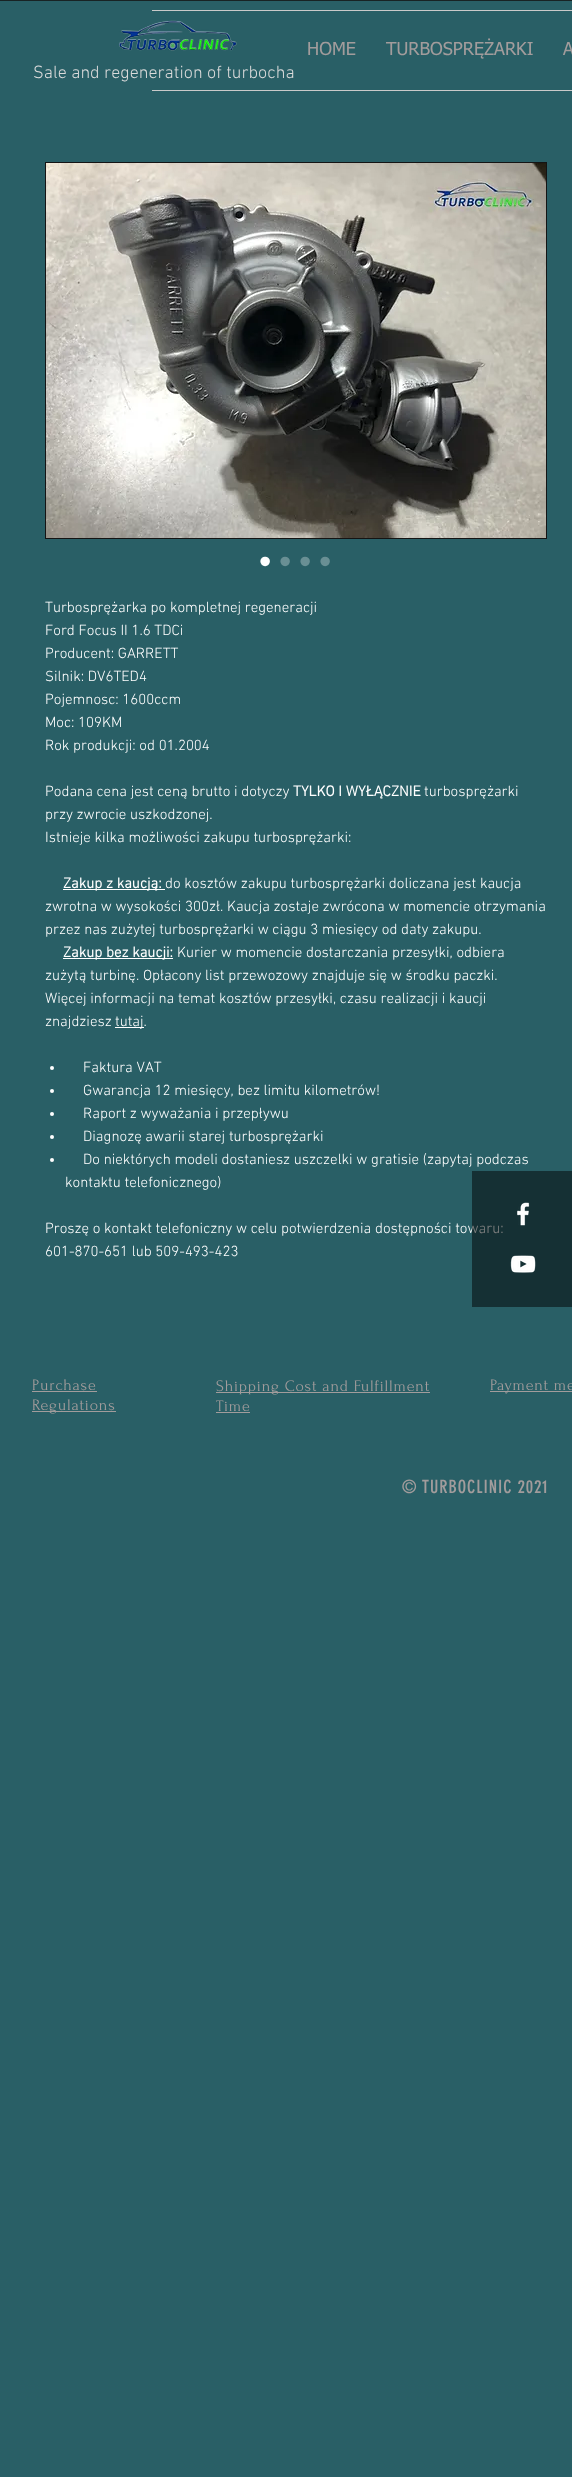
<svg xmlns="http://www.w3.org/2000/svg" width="572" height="2477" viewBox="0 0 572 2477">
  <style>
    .t1 { font: 18px tahoma; fill: #a29c9c; }
    .t2 { font: 300 18px 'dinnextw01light'; fill: #dbdbdb; }
    .t3 { font: 35px Liberation Sans; fill: #fff; }
    .t4 { font: 35px Liberation Sans; fill: #698f94; }
    .t5 { font: 300 15px 'dinnextw01light'; fill: #fff; }
    .t6 { font: bold 15px 'dinnextw01light'; fill: #fff; }
    .t7 { font: 16px Forum; letter-spacing: 0.8px; fill: #a29c9c; }
    .t8 { font: 18px 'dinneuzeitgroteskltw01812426'; letter-spacing: 0.9px; fill: #a29c9c; }
  </style>
  <rect width="100%" height="100%" fill="#295f66"/>
  <rect x="0" y="0" width="572" height="1" fill="#182324"/>
  <rect x="152" y="10" width="420" height="1" fill="#cacaca"/>
  <rect x="152" y="90" width="420" height="1" fill="#cacaca"/>
  <text x="307" y="55" class="t1">HOME</text>
  <text x="386" y="55" class="t1">TURBOSPRĘŻARKI</text>
  <text x="563" y="55" class="t1">A</text>
  <image x="119" y="20" width="118" height="31" href="images/1.png"/>
  <text x="33" y="78" class="t2">Sale and regeneration of turbocha</text>
  <rect x="45.5" y="162.5" width="501" height="376" fill="none" stroke="#141414"/>
  <image x="46" y="163" width="500" height="375" href="images/2.png"/>
  <text x="259" y="573" class="t3">•</text>
  <text x="279" y="573" class="t4">•</text>
  <text x="299" y="573" class="t4">•</text>
  <text x="319" y="573" class="t4">•</text>
  <text x="45" y="612" class="t5">Turbosprężarka po kompletnej regeneracji</text>
  <text x="45" y="635" class="t5">Ford Focus II 1.6 TDCi</text>
  <text x="45" y="658" class="t5">Producent: GARRETT</text>
  <text x="45" y="681" class="t5">Silnik: DV6TED4</text>
  <text x="45" y="704" class="t5">Pojemnosc: 1600ccm</text>
  <text x="45" y="727" class="t5">Moc: 109KM</text>
  <text x="45" y="750" class="t5">Rok produkcji: od 01.2004</text>
  <text x="45" y="796" class="t5">Podana cena jest ceną brutto i dotyczy</text>
  <text x="293" y="796" class="t6">TYLKO I WYŁĄCZNIE</text>
  <text x="424" y="796" class="t5">turbosprężarki</text>
  <text x="45" y="819" class="t5">przy zwrocie uszkodzonej.</text>
  <text x="45" y="842" class="t5">Istnieje kilka możliwości zakupu turbosprężarki:</text>
  <rect x="63" y="889" width="102" height="1" fill="#fff"/>
  <text x="63" y="888" class="t6">Zakup z kaucją:</text>
  <text x="165" y="888" class="t5">do kosztów zakupu turbosprężarki doliczana jest kaucja</text>
  <text x="45" y="911" class="t5">zwrotna w wysokości 300zł. Kaucja zostaje zwrócona w momencie otrzymania</text>
  <text x="45" y="934" class="t5">przez nas zużytej turbosprężarki w ciągu 3 miesięcy od daty zakupu.</text>
  <rect x="63" y="958" width="110" height="1" fill="#fff"/>
  <text x="63" y="957" class="t6">Zakup bez kaucji:</text>
  <text x="177" y="957" class="t5">Kurier w momencie dostarczania przesyłki, odbiera</text>
  <text x="45" y="980" class="t5">zużytą turbinę. Opłacony list przewozowy znajduje się w środku paczki.</text>
  <text x="45" y="1003" class="t5">Więcej informacji na temat kosztów przesyłki, czasu realizacji i kaucji</text>
  <text x="45" y="1026" class="t5">znajdziesz</text>
  <rect x="115" y="1027" width="29" height="1" fill="#fff"/>
  <text x="115" y="1026" class="t5">tutaj.</text>
  <circle cx="52" cy="1068" r="2" fill="#fff"/>
  <text x="83" y="1072" class="t5">Faktura VAT</text>
  <circle cx="52" cy="1091" r="2" fill="#fff"/>
  <text x="83" y="1095" class="t5">Gwarancja 12 miesięcy, bez limitu kilometrów!</text>
  <circle cx="52" cy="1114" r="2" fill="#fff"/>
  <text x="83" y="1118" class="t5">Raport z wyważania i przepływu</text>
  <circle cx="52" cy="1137" r="2" fill="#fff"/>
  <text x="83" y="1141" class="t5">Diagnozę awarii starej turbosprężarki</text>
  <circle cx="52" cy="1160" r="2" fill="#fff"/>
  <text x="83" y="1164" class="t5">Do niektórych modeli dostaniesz uszczelki w gratisie (zapytaj podczas</text>
  <text x="65" y="1187" class="t5">kontaktu telefonicznego)</text>
  <text x="45" y="1233" class="t5">Proszę o kontakt telefoniczny w celu potwierdzenia dostępności towaru:</text>
  <text x="45" y="1256" class="t5">601-870-651 lub 509-493-423</text>
  <rect x="472" y="1171" width="100" height="136" fill="#02020280"/>
  <image x="517" y="1202" width="13" height="24" href="images/3.png"/>
  <image x="510" y="1255" width="26" height="18" href="images/4.png"/>
  <text x="32" y="1390" class="t7">Purchase</text>
  <rect x="32" y="1391" width="65" height="1" fill="#a29c9c"/>
  <rect x="32" y="1411" width="84" height="1" fill="#a29c9c"/>
  <text x="32" y="1410" class="t7">Regulations</text>
  <rect x="216" y="1392" width="214" height="1" fill="#a29c9c"/>
  <text x="216" y="1391" class="t7">Shipping Cost and Fulfillment</text>
  <text x="216" y="1411" class="t7">Time</text>
  <rect x="216" y="1412" width="34" height="1" fill="#a29c9c"/>
  <rect x="490" y="1391" width="82" height="1" fill="#a29c9c"/>
  <text x="490" y="1390" class="t7">Payment me</text>
  <text x="402" y="1493" class="t8">© TURBOCLINIC 2021</text>
</svg>
